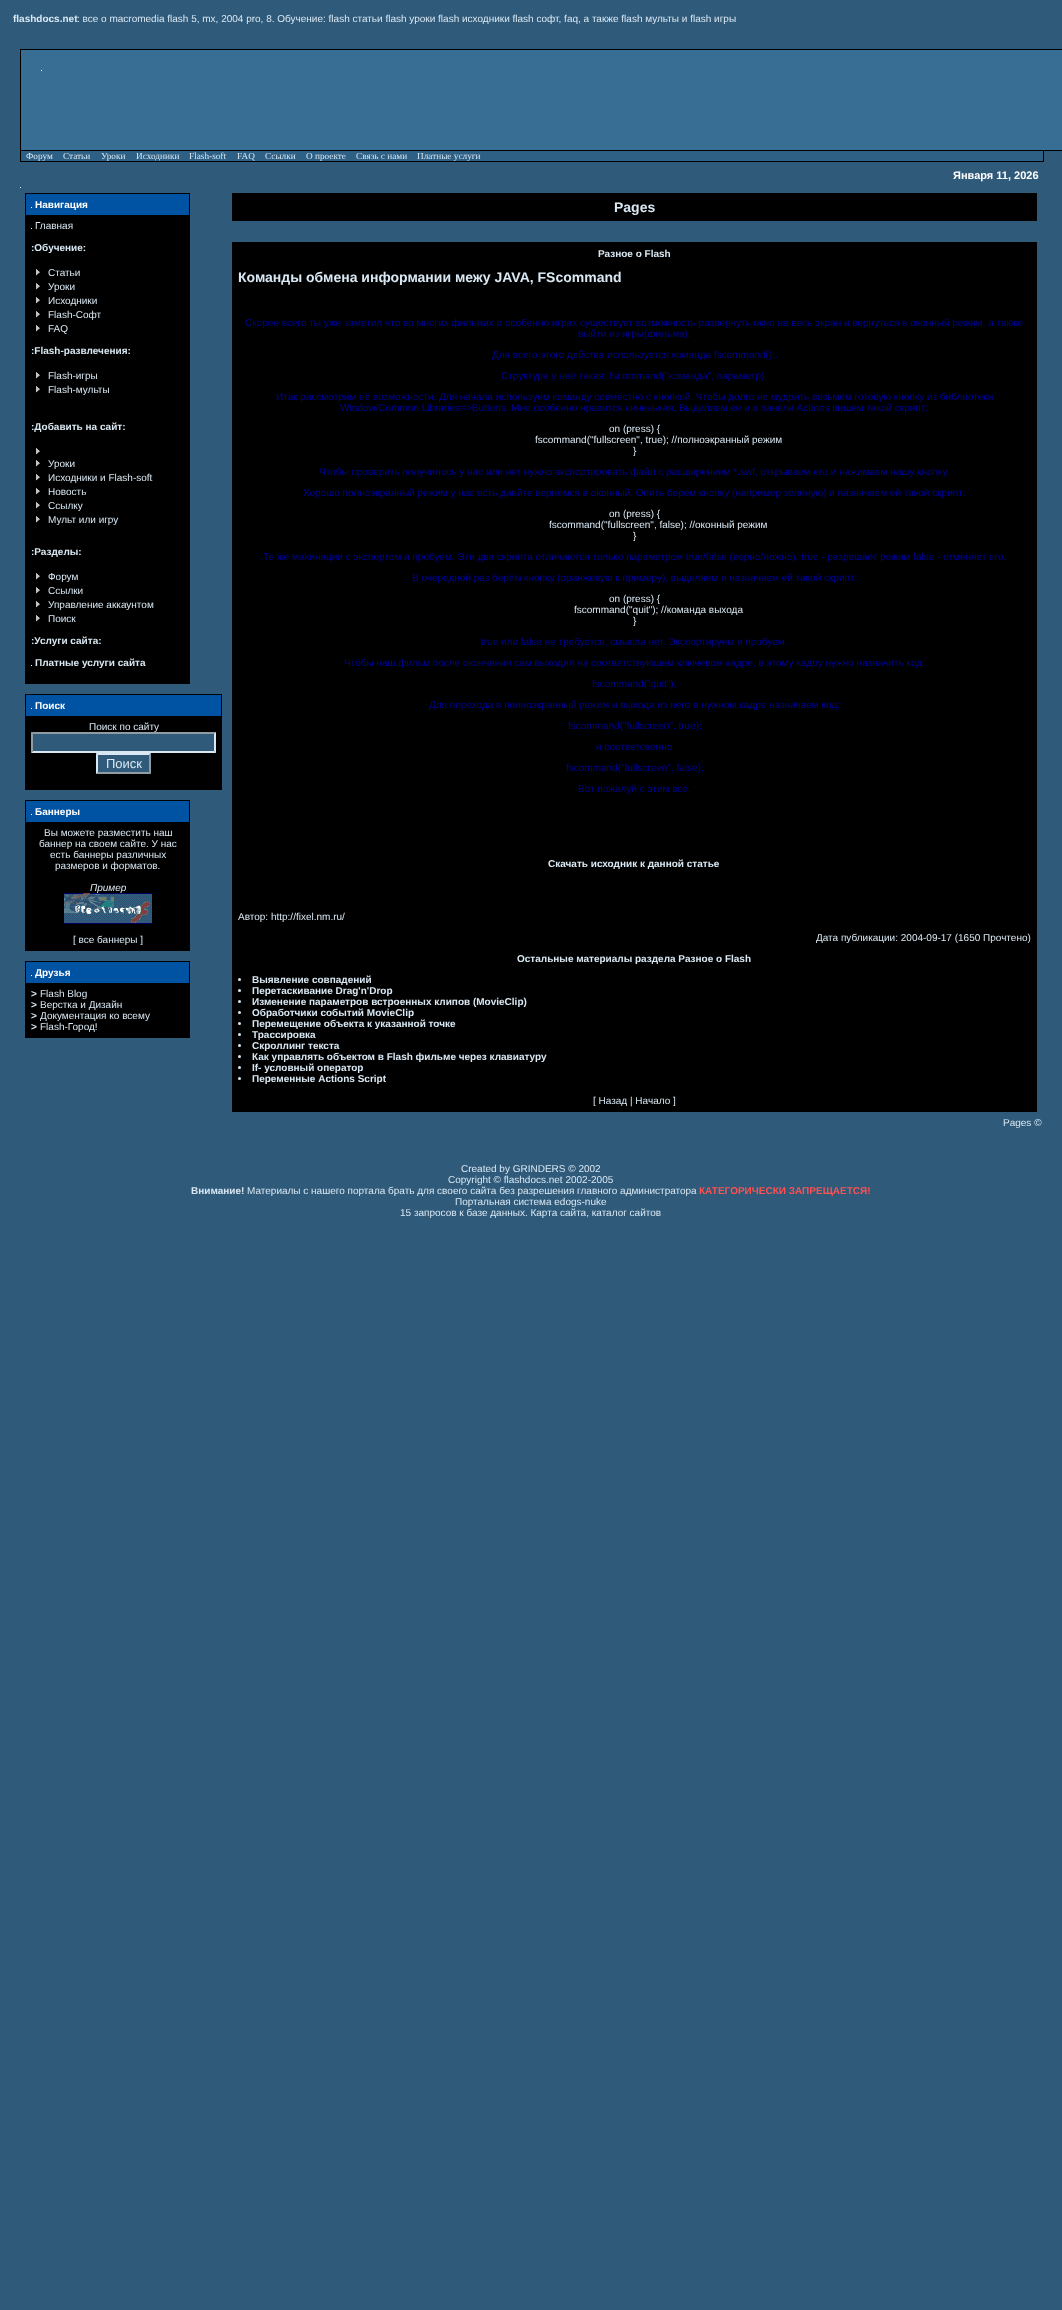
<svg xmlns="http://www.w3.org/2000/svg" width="1062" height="2310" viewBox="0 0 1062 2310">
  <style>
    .t1 { font: bold 10px Liberation Sans; fill: #d9e8f3; }
    .t2 { font: 10px Liberation Sans; fill: #d9e8f3; }
    .t3 { font: 9.25px Liberation Serif; fill: #d9e8f3; }
    .t4 { font: bold 11px Liberation Sans; fill: #fff; }
    .t5 { font: bold 10px Liberation Sans; fill: #fff; }
    .t6 { font: 13px Liberation Sans; fill: #d9e8f3; }
    .t7 { font: italic 10px Liberation Sans; fill: #d9e8f3; }
    .t8 { font: bold 14px Liberation Sans; fill: #d9e8f3; }
    .t9 { font: 10px Liberation Sans; fill: #009; }
    .t10 { font: bold 10px Liberation Sans; fill: #ff5151; }
  </style>
  <rect width="100%" height="100%" fill="#305a7a"/>
  <text x="13" y="22" class="t1">flashdocs.net</text>
  <text x="77" y="22" class="t2">: все о macromedia flash 5, mx, 2004 pro, 8. Обучение: flash статьи flash уроки flash исходники flash софт, faq, а также flash мульты и flash игры</text>
  <rect x="20.5" y="49.5" width="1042" height="101" fill="#386d94" stroke="#000"/>
  <rect x="41" y="70" width="1" height="1" fill="#fff"/>
  <rect x="21" y="151" width="1022" height="10" fill="#2e6086"/>
  <rect x="1043" y="151" width="1" height="11" fill="#000"/>
  <rect x="20" y="161" width="1024" height="1" fill="#000"/>
  <rect x="20" y="151" width="1" height="11" fill="#000"/>
  <text x="26" y="159" class="t3">Форум</text>
  <text x="63" y="159" class="t3">Статьи</text>
  <text x="101" y="159" class="t3">Уроки</text>
  <text x="136" y="159" class="t3">Исходники</text>
  <text x="189" y="159" class="t3">Flash-soft</text>
  <text x="237" y="159" class="t3">FAQ</text>
  <text x="265" y="159" class="t3">Ссылки</text>
  <text x="306" y="159" class="t3">О проекте</text>
  <text x="356" y="159" class="t3">Связь с нами</text>
  <text x="417" y="159" class="t3">Платные услуги</text>
  <text x="953" y="179" class="t4">Января 11, 2026</text>
  <rect x="20" y="187" width="1" height="1" fill="#fff"/>
  <rect x="25" y="193" width="165" height="491" fill="#000"/>
  <rect x="26" y="194" width="163" height="21" fill="#0052a2"/>
  <text x="35" y="208" class="t5">Навигация</text>
  <rect x="31" y="207" width="1" height="1" fill="#fff"/>
  <rect x="31" y="228" width="1" height="1" fill="#fff"/>
  <text x="35" y="229" class="t2">Главная</text>
  <text x="31" y="251" class="t1">:Обучение:</text>
  <image x="36" y="269" width="4" height="7" href="images/1.png"/>
  <text x="48" y="276" class="t2">Статьи</text>
  <image x="36" y="283" width="4" height="7" href="images/1.png"/>
  <text x="48" y="290" class="t2">Уроки</text>
  <image x="36" y="297" width="4" height="7" href="images/1.png"/>
  <text x="48" y="304" class="t2">Исходники</text>
  <image x="36" y="311" width="4" height="7" href="images/1.png"/>
  <text x="48" y="318" class="t2">Flash-Софт</text>
  <image x="36" y="325" width="4" height="7" href="images/1.png"/>
  <text x="48" y="332" class="t2">FAQ</text>
  <text x="31" y="354" class="t1">:Flash-развлечения:</text>
  <image x="36" y="372" width="4" height="7" href="images/1.png"/>
  <text x="48" y="379" class="t2">Flash-игры</text>
  <image x="36" y="386" width="4" height="7" href="images/1.png"/>
  <text x="48" y="393" class="t2">Flash-мульты</text>
  <text x="31" y="430" class="t1">:Добавить на сайт:</text>
  <image x="36" y="448" width="4" height="7" href="images/2.png"/>
  <image x="36" y="460" width="4" height="7" href="images/1.png"/>
  <text x="48" y="467" class="t2">Уроки</text>
  <image x="36" y="474" width="4" height="7" href="images/2.png"/>
  <text x="48" y="481" class="t2">Исходники и Flash-soft</text>
  <image x="36" y="488" width="4" height="7" href="images/1.png"/>
  <text x="48" y="495" class="t2">Новость</text>
  <image x="36" y="502" width="4" height="7" href="images/1.png"/>
  <text x="48" y="509" class="t2">Ссылку</text>
  <image x="36" y="516" width="4" height="7" href="images/3.png"/>
  <text x="48" y="523" class="t2">Мульт или игру</text>
  <text x="31" y="555" class="t1">:Разделы:</text>
  <image x="36" y="573" width="4" height="7" href="images/1.png"/>
  <text x="48" y="580" class="t2">Форум</text>
  <image x="36" y="587" width="4" height="7" href="images/1.png"/>
  <text x="48" y="594" class="t2">Ссылки</text>
  <image x="36" y="601" width="4" height="7" href="images/1.png"/>
  <text x="48" y="608" class="t2">Управление аккаунтом</text>
  <image x="36" y="615" width="4" height="7" href="images/1.png"/>
  <text x="48" y="622" class="t2">Поиск</text>
  <text x="31" y="644" class="t1">:Услуги сайта:</text>
  <rect x="31" y="665" width="1" height="1" fill="#fff"/>
  <text x="35" y="666" class="t1">Платные услуги сайта</text>
  <rect x="25" y="694" width="197" height="96" fill="#000"/>
  <rect x="26" y="695" width="195" height="21" fill="#0052a2"/>
  <text x="35" y="709" class="t5">Поиск</text>
  <rect x="31" y="708" width="1" height="1" fill="#fff"/>
  <text x="89" y="730" class="t2">Поиск по сайту</text>
  <rect x="31" y="732" width="185" height="21" fill="#305a7a"/>
  <path d="M31 732H216L214 734H33Z" fill="#919ba2"/>
  <path d="M216 732V753L214 751V734Z" fill="#d9e8f3"/>
  <path d="M216 753H31L33 751H214Z" fill="#d9e8f3"/>
  <path d="M31 753V732L33 734V751Z" fill="#919ba2"/>
  <rect x="96" y="753" width="55" height="21" fill="#305a7a"/>
  <path d="M96 753H151L149 755H98Z" fill="#d9e8f3"/>
  <path d="M151 753V774L149 772V755Z" fill="#919ba2"/>
  <path d="M151 774H96L98 772H149Z" fill="#919ba2"/>
  <path d="M96 774V753L98 755V772Z" fill="#d9e8f3"/>
  <text x="106" y="768" class="t6">Поиск</text>
  <rect x="25" y="800" width="165" height="151" fill="#000"/>
  <rect x="26" y="801" width="163" height="21" fill="#0052a2"/>
  <text x="35" y="815" class="t5">Баннеры</text>
  <rect x="31" y="814" width="1" height="1" fill="#fff"/>
  <text x="44" y="836" class="t2">Вы можете разместить наш</text>
  <text x="39" y="847" class="t2">баннер на своем сайте. У нас</text>
  <text x="50" y="858" class="t2">есть баннеры различных</text>
  <text x="55" y="869" class="t2">размеров и форматов.</text>
  <text x="90" y="891" class="t7">Пример</text>
  <image x="64" y="893" width="88" height="31" href="images/4.png"/>
  <text x="73" y="943" class="t2">[ все баннеры ]</text>
  <rect x="25" y="961" width="165" height="77" fill="#000"/>
  <rect x="26" y="962" width="163" height="21" fill="#0052a2"/>
  <text x="35" y="976" class="t5">Друзья</text>
  <rect x="31" y="975" width="1" height="1" fill="#fff"/>
  <text x="31" y="997" class="t1">&gt;</text>
  <text x="40" y="997" class="t2">Flash Blog</text>
  <text x="31" y="1008" class="t1">&gt;</text>
  <text x="40" y="1008" class="t2">Верстка и Дизайн</text>
  <text x="31" y="1019" class="t1">&gt;</text>
  <text x="40" y="1019" class="t2">Документация ко всему</text>
  <text x="31" y="1030" class="t1">&gt;</text>
  <text x="40" y="1030" class="t2">Flash-Город!</text>
  <rect x="232" y="193" width="805" height="28" fill="#000"/>
  <text x="614" y="212" class="t8">Pages</text>
  <rect x="232" y="242" width="805" height="870" fill="#000"/>
  <text x="598" y="257" class="t1">Разное о Flash</text>
  <text x="238" y="282" class="t8">Команды обмена информании межу JAVA, FScommand</text>
  <text x="245" y="326" class="t9">Скорее всего ты уже заметил что во многих фильмах и особенно играх существует возможность развернуть окно на весь экран и вернуться в оконный режим, а также</text>
  <text x="578" y="337" class="t9">выйти из игры(фильма).</text>
  <text x="492" y="358" class="t9">Для всего этого действа используется команда fscommand();.</text>
  <text x="501" y="379" class="t9">Структура у неё такая: fscommand("команда", параметр).</text>
  <text x="276" y="400" class="t9">Итак рассмотрим её возможности. Для начала используем команду совместно с кнопкой. Чтобы долго не мудрить возьмём готовую кнопку из библиотеки</text>
  <text x="340" y="411" class="t9">Window/Common Libraries=&gt;Buttons. Мне особенно нравится синенькая. Выделяем её и в панели Actions пишем такой скрипт:</text>
  <text x="609" y="432" class="t2">on (press) {</text>
  <text x="535" y="443" class="t2">fscommand("fullscreen", true); //полноэкранный режим</text>
  <text x="633" y="454" class="t2">}</text>
  <text x="319" y="475" class="t9">Чтобы проверить получилось у нас или нет нужно экспортировать файл с расширением *.swf, открываем его и нажимаем нашу кнопку.</text>
  <text x="303" y="496" class="t9">Хорошо полноэкранный режим у нас есть давйте вернёмся в оконный. Опять берём кнопку (например зелёную) и назначаем ей такой скрипт:</text>
  <text x="609" y="517" class="t2">on (press) {</text>
  <text x="549" y="528" class="t2">fscommand("fullscreen", false); //оконный режим</text>
  <text x="633" y="539" class="t2">}</text>
  <text x="263" y="560" class="t9">Те же махинации с экспортом и пробуем. Эти два скрипта отличаются только параметром true/false (верно/ложно). true - разрешает режим false - отменяет его.</text>
  <text x="412" y="581" class="t9">В очередной раз берём кнопку (оранжевую к примеру), выделяем и назначаем ей такой скрипт:</text>
  <text x="609" y="602" class="t2">on (press) {</text>
  <text x="574" y="613" class="t2">fscommand("quit"); //команда выхода</text>
  <text x="633" y="624" class="t2">}</text>
  <text x="481" y="645" class="t9">true или false не требуется, смысла нет. Экспортируем и пробуем.</text>
  <text x="344" y="666" class="t9">Чтобы наш фильм после окончания сам выходил на соответствующем ключевом кадре, в этому кадру нужно назначить код:</text>
  <text x="592" y="687" class="t9">fscommand("quit");</text>
  <text x="429" y="708" class="t9">Для перехода в полноэкранный режим и выхода из него в нужном кадре назначаем код:</text>
  <text x="568" y="729" class="t9">fscommand("fullscreen", true);</text>
  <text x="596" y="750" class="t9">и соответсвенно</text>
  <text x="566" y="771" class="t9">fscommand("fullscreen", false);</text>
  <text x="578" y="792" class="t9">Вот пожалуй с этим всё.</text>
  <text x="548" y="867" class="t1">Скачать исходник к данной статье</text>
  <text x="238" y="920" class="t2">Автор: http://fixel.nm.ru/</text>
  <text x="816" y="941" class="t2">Дата публикации: 2004-09-17 (1650 Прочтено)</text>
  <text x="517" y="962" class="t1">Остальные материалы раздела Разное о Flash</text>
  <circle cx="239.5" cy="979.5" r="1.5" fill="#d9e8f3"/>
  <text x="252" y="983" class="t1">Выявление совпадений</text>
  <circle cx="239.5" cy="990.5" r="1.5" fill="#d9e8f3"/>
  <text x="252" y="994" class="t1">Перетаскивание Drag'n'Drop</text>
  <circle cx="239.5" cy="1001.5" r="1.5" fill="#d9e8f3"/>
  <text x="252" y="1005" class="t1">Изменение параметров встроенных клипов (MovieClip)</text>
  <circle cx="239.5" cy="1012.5" r="1.5" fill="#d9e8f3"/>
  <text x="252" y="1016" class="t1">Обработчики событий MovieClip</text>
  <circle cx="239.5" cy="1023.5" r="1.5" fill="#d9e8f3"/>
  <text x="252" y="1027" class="t1">Перемещение объекта к указанной точке</text>
  <circle cx="239.5" cy="1034.5" r="1.5" fill="#d9e8f3"/>
  <text x="252" y="1038" class="t1">Трассировка</text>
  <circle cx="239.5" cy="1045.5" r="1.5" fill="#d9e8f3"/>
  <text x="252" y="1049" class="t1">Скроллинг текста</text>
  <circle cx="239.5" cy="1056.5" r="1.5" fill="#d9e8f3"/>
  <text x="252" y="1060" class="t1">Как управлять объектом в Flash фильме через клавиатуру</text>
  <circle cx="239.5" cy="1067.5" r="1.5" fill="#d9e8f3"/>
  <text x="252" y="1071" class="t1">If- условный оператор</text>
  <circle cx="239.5" cy="1078.5" r="1.5" fill="#d9e8f3"/>
  <text x="252" y="1082" class="t1">Переменные Actions Script</text>
  <text x="593" y="1104" class="t2">[ Назад | Начало ]</text>
  <text x="1003" y="1126" class="t2">Pages ©</text>
  <text x="461" y="1172" class="t2">Created by GRINDERS © 2002</text>
  <text x="448" y="1183" class="t2">Copyright © flashdocs.net 2002-2005</text>
  <text x="191" y="1194" class="t1">Внимание!</text>
  <text x="247" y="1194" class="t2">Материалы с нашего портала брать для своего сайта без разрешения главного администратора</text>
  <text x="699" y="1194" class="t10">КАТЕГОРИЧЕСКИ ЗАПРЕЩАЕТСЯ!</text>
  <text x="455" y="1205" class="t2">Портальная система edogs-nuke</text>
  <text x="400" y="1216" class="t2">15 запросов к базе данных. Карта сайта, каталог сайтов</text>
</svg>
